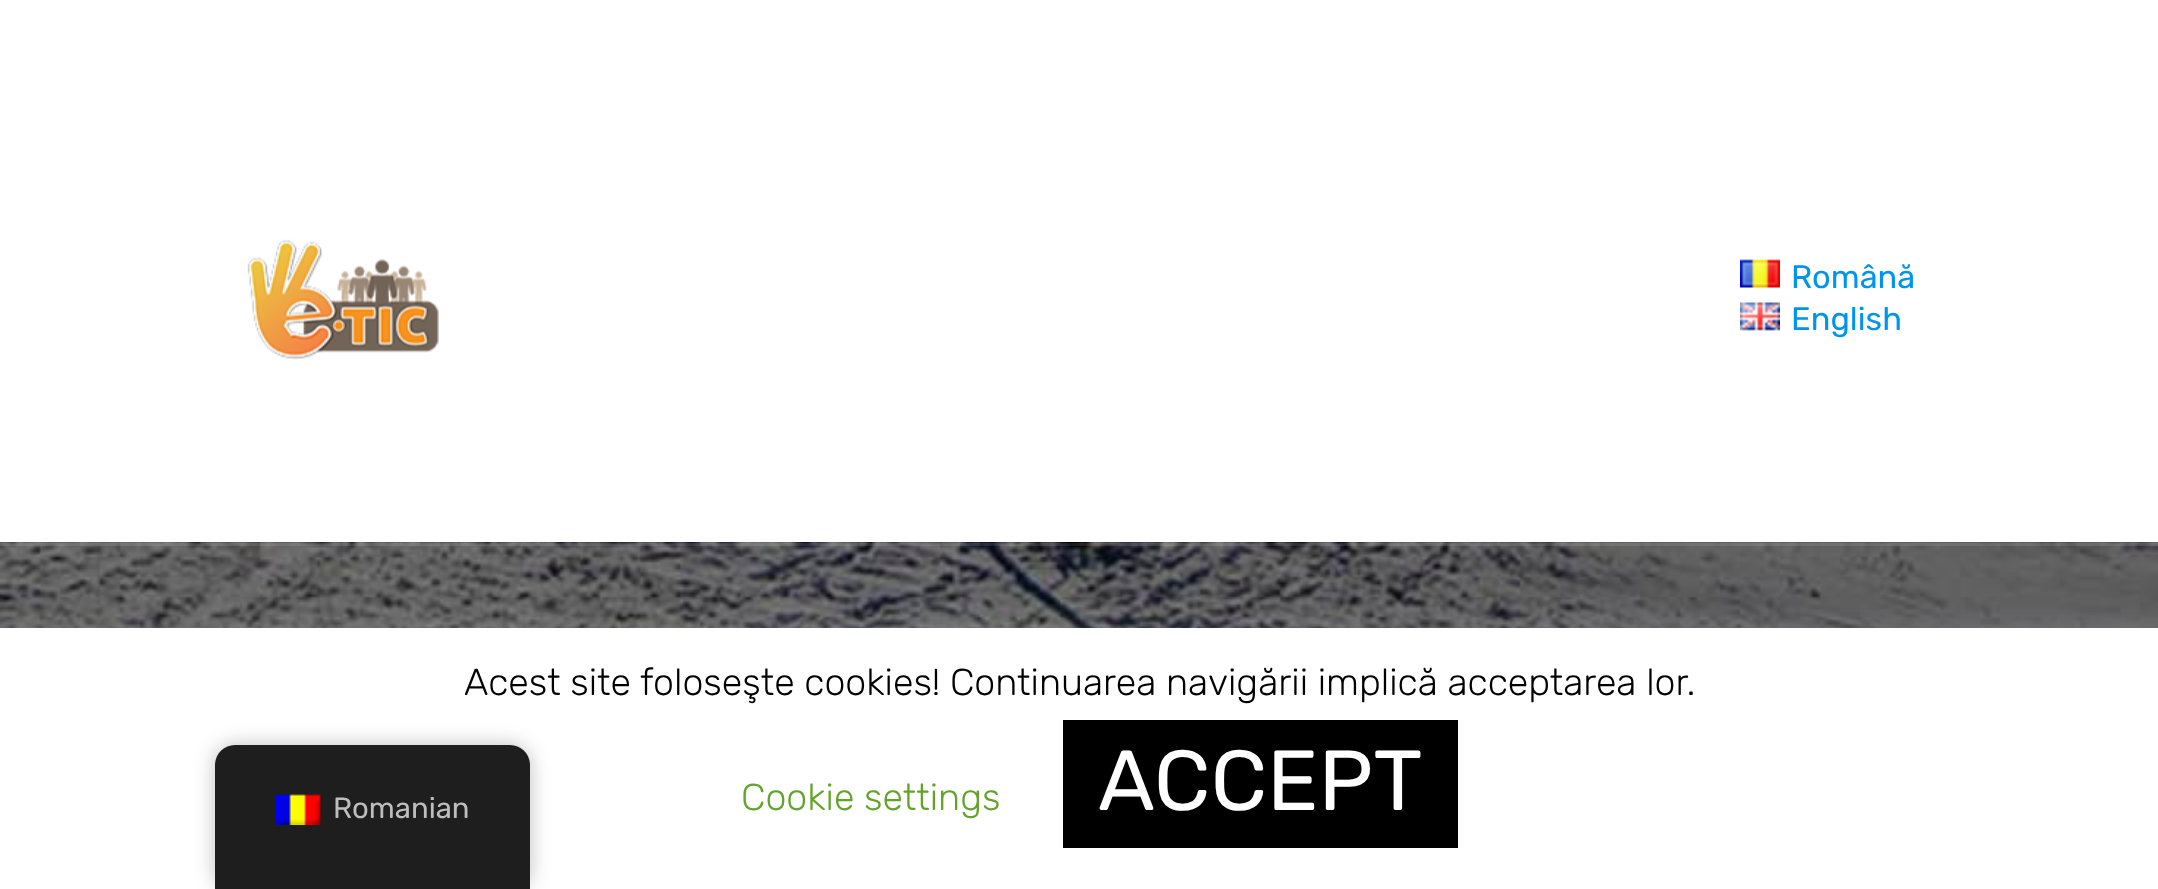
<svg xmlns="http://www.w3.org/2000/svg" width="2158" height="889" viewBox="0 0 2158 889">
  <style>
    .t1 { font: 32.5px Rubik; fill: #0095eb; }
    .t2 { font: 29.25px Rubik; fill: #bdbdbd; }
    .t3 { font: 300 37.5px Rubik; fill: #000; }
    .t4 { font: 300 37.5px Rubik; fill: #62a329; }
    .t5 { font: 85px Rubik; fill: #fff; }
  </style>
  <rect width="100%" height="100%" fill="#fff"/>
  <image x="247" y="239" width="192" height="121" href="images/1.png"/>
  <image x="1740" y="259" width="40" height="29" href="images/2.png"/>
  <text x="1791" y="288" class="t1">Română</text>
  <image x="1740" y="302" width="40" height="29" href="images/3.png"/>
  <text x="1791" y="330" class="t1">English</text>
  <image x="0" y="542" width="2158" height="86" href="images/4.png"/>
  <rect x="0" y="543" width="2158" height="3" fill="#ffffff1a"/>
  <rect x="0" y="625" width="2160" height="263" fill="#acabab4d" filter="blur(12.5px)"/>
  <rect x="0" y="628" width="2158" height="261" fill="#fff"/>
  <rect x="215" y="745" width="315" height="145" rx="20" fill="#00000040" filter="blur(10px)"/>
  <path d="M235 745H510C521 745 530 754 530 765V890H215V765C215 754 224 745 235 745Z" fill="#1e1e1e"/>
  <image x="275" y="794" width="46" height="31" href="images/5.png"/>
  <text x="333" y="818" class="t2">Romanian</text>
  <text x="464" y="695" class="t3">Acest site foloseşte cookies! Continuarea navigării implică acceptarea lor.</text>
  <text x="741" y="810" class="t4">Cookie settings</text>
  <rect x="1063" y="720" width="395" height="128" fill="#000"/>
  <text x="1098" y="810" class="t5">ACCEPT</text>
</svg>
